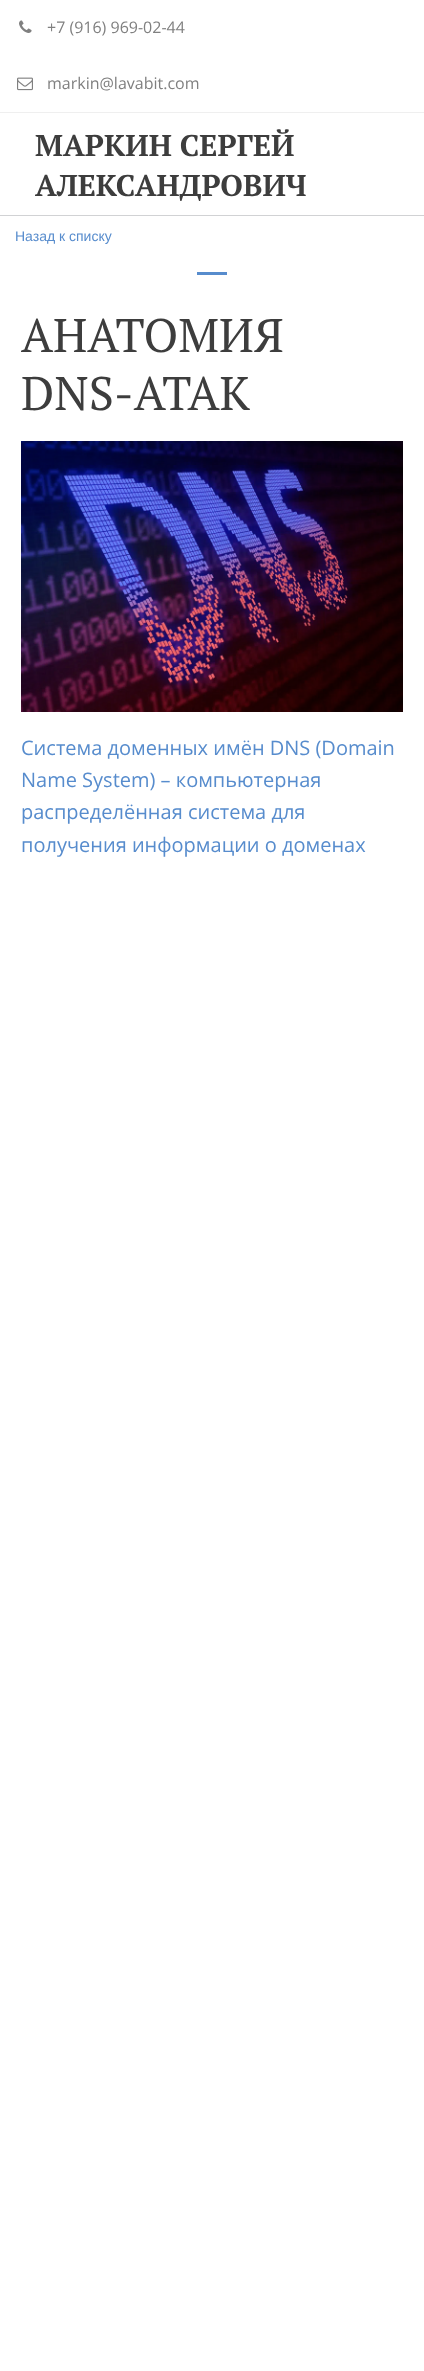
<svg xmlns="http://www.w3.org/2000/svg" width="424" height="2371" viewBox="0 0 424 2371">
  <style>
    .t1 { font: 16px Open Sans; fill: #808080; }
    .t2 { font: bold 30px PT Serif; fill: #3d3d3d; }
    .t3 { font: 14px Liberation Sans; fill: #578ccd; }
    .t4 { font: 47px PT Serif; fill: #3d3d3d; }
    .t5 { font: 20px Open Sans; fill: #578ccd; }
  </style>
  <rect width="100%" height="100%" fill="#fff"/>
  <rect x="0" y="215" width="424" height="1" fill="#d1d2d4"/>
  <rect x="0" y="112" width="424" height="1" fill="#efefef"/>
  <image x="19" y="20" width="13" height="13" href="images/1.png"/>
  <text x="47" y="33" class="t1">+7 (916) 969-02-44</text>
  <image x="17" y="77" width="16" height="14" href="images/2.png"/>
  <text x="47" y="89" class="t1">markin@lavabit.com</text>
  <text x="35" y="156" class="t2">МАРКИН СЕРГЕЙ</text>
  <text x="35" y="196" class="t2">АЛЕКСАНДРОВИЧ</text>
  <text x="15" y="241" class="t3">Назад к списку</text>
  <rect x="197" y="272" width="30" height="3" fill="#578ccd"/>
  <text x="21" y="352" class="t4">АНАТОМИЯ</text>
  <text x="21" y="410" class="t4">DNS-АТАК</text>
  <image x="21" y="441" width="382" height="271" href="images/3.png"/>
  <text x="21" y="755" class="t5">Система доменных имён DNS (Domain</text>
  <text x="21" y="787" class="t5">Name System) – компьютерная</text>
  <text x="21" y="819" class="t5">распределённая система для</text>
  <text x="21" y="852" class="t5">получения информации о доменах</text>
</svg>
